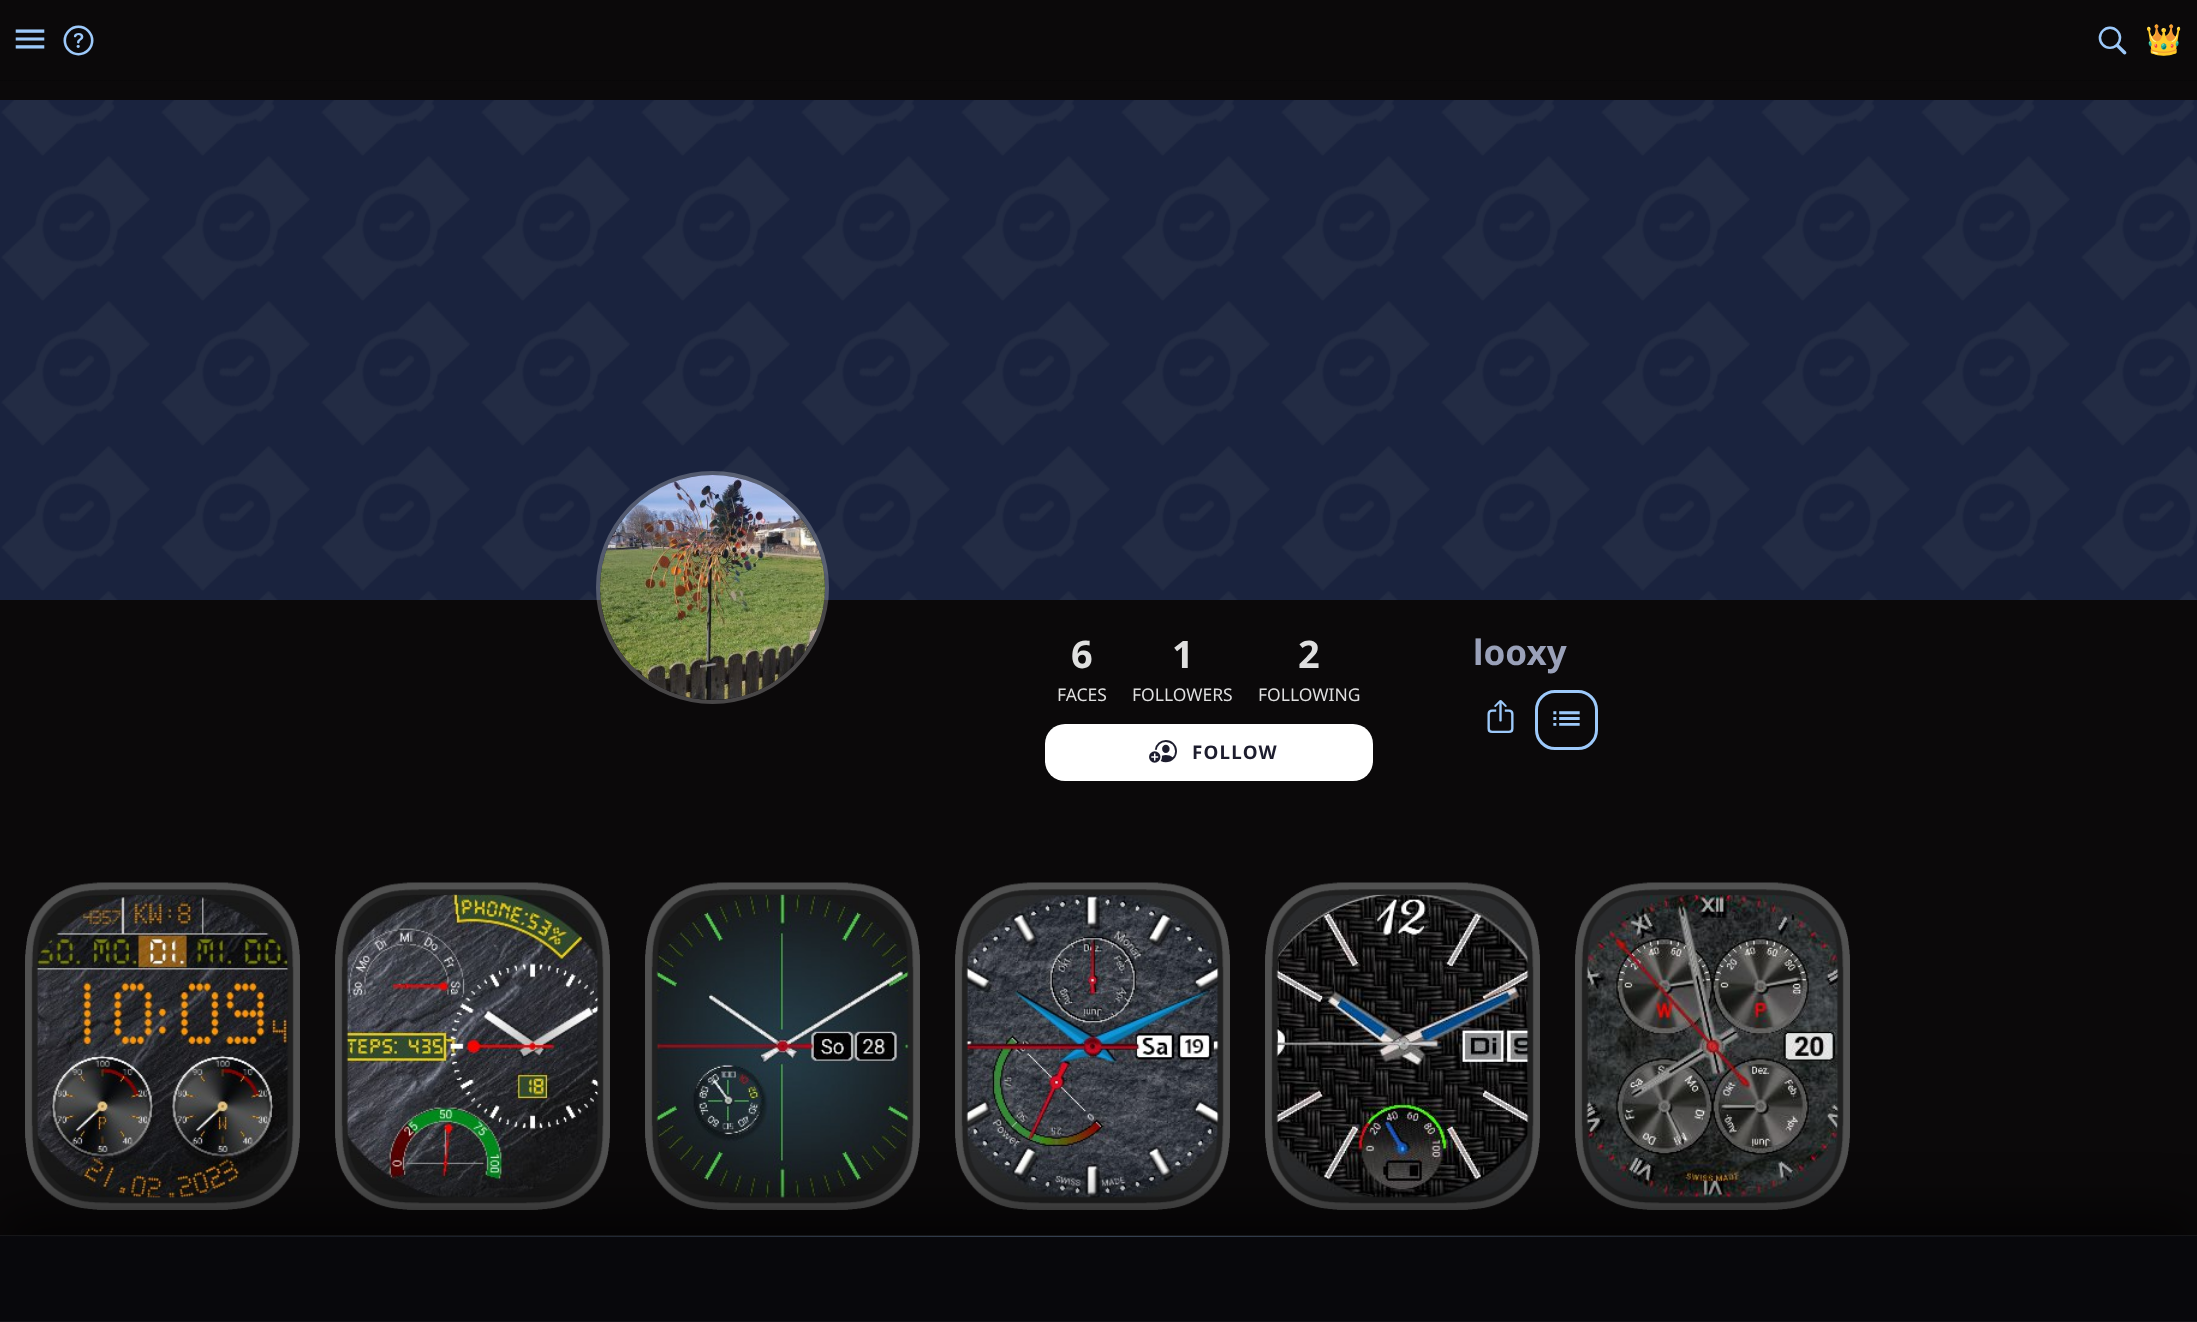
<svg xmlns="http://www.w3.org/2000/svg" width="2197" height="1322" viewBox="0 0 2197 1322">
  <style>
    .t1 { font: 38px 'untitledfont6'; fill: #9dc9fa; }
    .t2 { font: 35px 'untitledfont6'; fill: #9dc9fa; }
    .t3 { font: 30px Noto Color Emoji; fill: #9dc9fa; }
    .t4 { font: bold 38px Noto Sans; fill: #dfdfdf; }
    .t5 { font: 17.5px Noto Sans; fill: #dfdfdf; }
    .t6 { font: 28px 'untitledfont6'; fill: #1d1d2e; }
    .t7 { font: bold 18.75px Noto Sans; letter-spacing: 1.25px; fill: #1d1d2e; }
    .t8 { font: bold 35px Noto Sans; fill: #9aa1b9; }
  </style>
  <defs>
    <linearGradient id="g1" gradientUnits="userSpaceOnUse" x1="1099" y1="80" x2="1099" y2="90"><stop offset="0" stop-color="#080708"/><stop offset="0.4" stop-color="#0a0809"/><stop offset="0.5" stop-color="#0b090a"/><stop offset="1" stop-color="#0b090a"/></linearGradient>
    <linearGradient id="g2" gradientUnits="userSpaceOnUse" x1="1099" y1="1236" x2="1099" y2="1226"><stop offset="0" stop-color="#000" stop-opacity="0.25"/><stop offset="0.4" stop-color="#000" stop-opacity="0.08"/><stop offset="0.5" stop-color="#000" stop-opacity="0.04"/><stop offset="0.9" stop-color="#000" stop-opacity="0"/><stop offset="1" stop-color="#000" stop-opacity="0"/></linearGradient>
    <linearGradient id="g3" gradientUnits="userSpaceOnUse" x1="0" y1="1237" x2="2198" y2="1237"><stop offset="0" stop-color="#08080c"/><stop offset="0.5" stop-color="#354253"/><stop offset="1" stop-color="#08080c"/></linearGradient>
  </defs>
  <rect width="100%" height="100%" fill="#0b090a"/>
  <text x="11" y="58" class="t1">W</text>
  <text x="61" y="58" class="t2">k</text>
  <text x="2095" y="58" class="t2">c</text>
  <text x="2145" y="50" class="t3">👑</text>
  <rect x="0" y="80" width="2197" height="1" fill="url(#g1)"/>
  <image x="0" y="100" width="2197" height="500" href="images/1.png"/>
  <circle cx="712.5" cy="587.5" r="114.5" fill="none" stroke="#ffffff40" stroke-width="4"/>
  <image x="600" y="475" width="225" height="225" href="images/2.png"/>
  <text x="1071" y="668" class="t4">6</text>
  <text x="1057" y="701" class="t5">FACES</text>
  <text x="1172" y="668" class="t4">1</text>
  <text x="1132" y="701" class="t5">FOLLOWERS</text>
  <text x="1298" y="668" class="t4">2</text>
  <text x="1258" y="701" class="t5">FOLLOWING</text>
  <rect x="1045" y="724" width="328" height="57" rx="20" fill="#fff"/>
  <text x="1149" y="765" class="t6">G</text>
  <text x="1192" y="759" class="t7">FOLLOW</text>
  <text x="1473" y="665" class="t8">looxy</text>
  <text x="1483" y="734" class="t2">i</text>
  <rect x="1536.5" y="691.5" width="60" height="57" rx="18.5" fill="none" stroke="#9dc9fa" stroke-width="3"/>
  <text x="1549" y="736" class="t2">X</text>
  <image x="36" y="894" width="253" height="304" href="images/4.png"/>
  <image x="25" y="882" width="275" height="328" href="images/3.png"/>
  <image x="346" y="894" width="253" height="304" href="images/6.png"/>
  <image x="335" y="882" width="275" height="328" href="images/5.png"/>
  <image x="656" y="894" width="253" height="304" href="images/8.png"/>
  <image x="645" y="882" width="275" height="328" href="images/7.png"/>
  <image x="966" y="894" width="253" height="304" href="images/10.png"/>
  <image x="955" y="882" width="275" height="328" href="images/9.png"/>
  <image x="1276" y="894" width="253" height="304" href="images/12.png"/>
  <image x="1265" y="882" width="275" height="328" href="images/11.png"/>
  <image x="1586" y="894" width="253" height="304" href="images/14.png"/>
  <image x="1575" y="882" width="275" height="328" href="images/13.png"/>
  <rect x="0" y="1210" width="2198" height="88" fill="#00000099" filter="blur(25px)"/>
  <rect x="0" y="1237" width="2197" height="84" fill="#08080c"/>
  <rect x="0" y="1321" width="2197" height="1" fill="#141418"/>
  <rect x="0" y="1235" width="2197" height="1" fill="#1c1c1f"/>
  <rect x="0" y="1235" width="2197" height="1" fill="url(#g2)"/>
  <rect x="0" y="1236" width="2197" height="1" fill="url(#g3)"/>
</svg>
